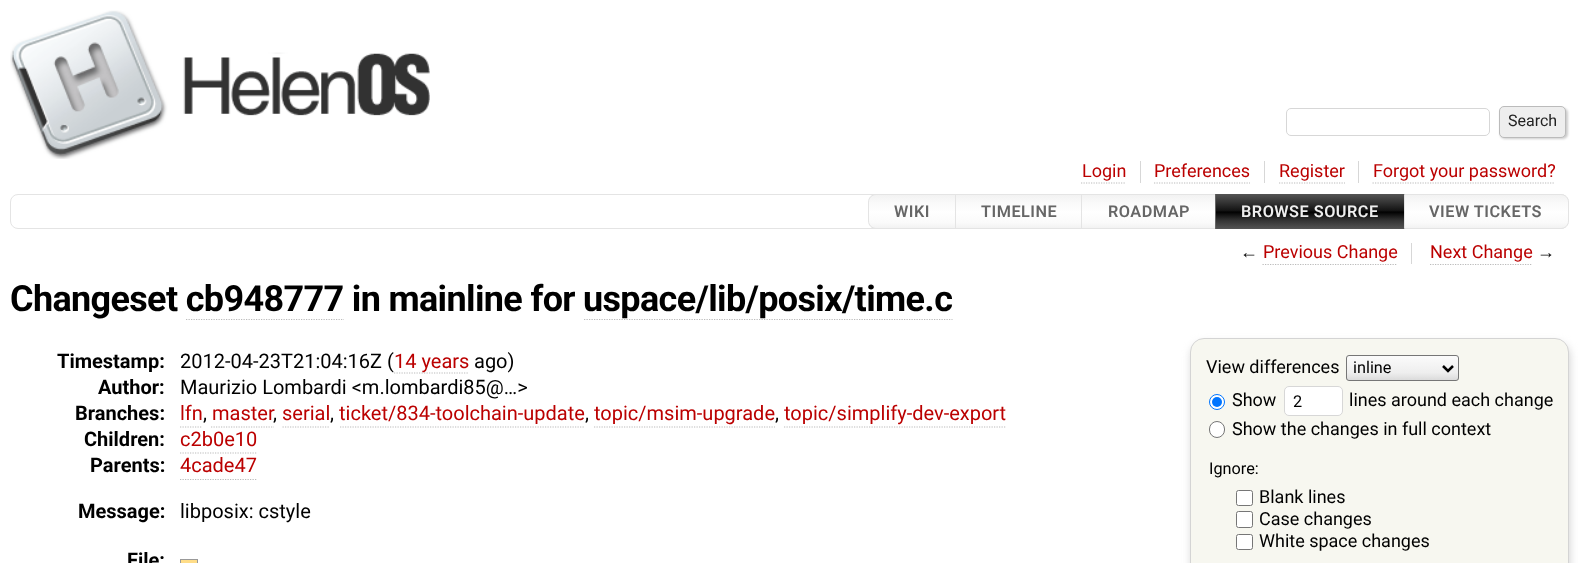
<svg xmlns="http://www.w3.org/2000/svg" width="1578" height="563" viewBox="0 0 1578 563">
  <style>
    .t1 { font: 16px Roboto; fill: #222; }
    .t2 { font: 18px Roboto; fill: #b00; }
    .t3 { font: 600 16.25px Roboto; letter-spacing: 0.5px; fill: #666; }
    .t4 { font: 600 16.25px Roboto; letter-spacing: 0.5px; fill: #eee; }
    .t5 { font: 18px Liberation Sans; fill: #000; }
    .t6 { font: bold 36px Roboto; letter-spacing: -0.65px; fill: #000; }
    .t7 { font: bold 20px Roboto; fill: #000; }
    .t8 { font: 20px Roboto; fill: #000; }
    .t9 { font: 20px Roboto; fill: #b00; }
    .t10 { font: 18px Roboto; fill: #000; }
    .t11 { font: 16.25px Roboto; fill: #000; }
  </style>
  <defs>
    <clipPath id="clip1"><path d="M876 194H956V229H876C871.5 229 868 225.5 868 221V202C868 197.5 871.5 194 876 194Z"/></clipPath>
    <linearGradient id="g1" gradientUnits="userSpaceOnUse" x1="912" y1="195" x2="912" y2="228"><stop offset="0" stop-color="#f2f2f2"/><stop offset="0.25" stop-color="#fafafa"/><stop offset="0.49" stop-color="#fefefe"/><stop offset="0.51" stop-color="#fff"/><stop offset="0.85" stop-color="#fafafa"/><stop offset="1" stop-color="#f2f2f2"/></linearGradient>
    <linearGradient id="g2" gradientUnits="userSpaceOnUse" x1="1019" y1="195" x2="1019" y2="228"><stop offset="0" stop-color="#f2f2f2"/><stop offset="0.25" stop-color="#fafafa"/><stop offset="0.49" stop-color="#fefefe"/><stop offset="0.51" stop-color="#fff"/><stop offset="0.85" stop-color="#fafafa"/><stop offset="1" stop-color="#f2f2f2"/></linearGradient>
    <linearGradient id="g3" gradientUnits="userSpaceOnUse" x1="1149" y1="195" x2="1149" y2="228"><stop offset="0" stop-color="#f2f2f2"/><stop offset="0.25" stop-color="#fafafa"/><stop offset="0.49" stop-color="#fefefe"/><stop offset="0.51" stop-color="#fff"/><stop offset="0.85" stop-color="#fafafa"/><stop offset="1" stop-color="#f2f2f2"/></linearGradient>
    <linearGradient id="g4" gradientUnits="userSpaceOnUse" x1="1310" y1="194" x2="1310" y2="229"><stop offset="0" stop-color="#555"/><stop offset="0.25" stop-color="#333"/><stop offset="0.49" stop-color="#111"/><stop offset="0.51" stop-color="#000"/><stop offset="0.75" stop-color="#333"/><stop offset="1" stop-color="#555"/></linearGradient>
    <clipPath id="clip2"><path d="M1404 194H1561C1565.5 194 1569 197.5 1569 202V221C1569 225.5 1565.5 229 1561 229H1404Z"/></clipPath>
    <linearGradient id="g5" gradientUnits="userSpaceOnUse" x1="1486" y1="195" x2="1486" y2="228"><stop offset="0" stop-color="#f2f2f2"/><stop offset="0.25" stop-color="#fafafa"/><stop offset="0.49" stop-color="#fefefe"/><stop offset="0.51" stop-color="#fff"/><stop offset="0.85" stop-color="#fafafa"/><stop offset="1" stop-color="#f2f2f2"/></linearGradient>
    <clipPath id="clip3"><rect x="1346" y="355" width="113" height="26" rx="3"/></clipPath>
    <linearGradient id="g6" gradientUnits="userSpaceOnUse" x1="1403" y1="380" x2="1403" y2="356"><stop offset="0" stop-color="#dbdbdb"/><stop offset="0.3" stop-color="#eee"/><stop offset="1" stop-color="#fbfbfb"/></linearGradient>
  </defs>
  <rect width="100%" height="100%" fill="#fff"/>
  <image x="10" y="10" width="420" height="149" href="images/1.png"/>
  <rect x="1286.5" y="108.5" width="203" height="27" rx="4.5" fill="none" stroke="#d7d7d7"/>
  <rect x="1500" y="108" width="68" height="31" rx="5" fill="#ccc" filter="blur(1px)"/>
  <rect x="1499.5" y="106.5" width="66" height="31" rx="4.5" fill="#eee" stroke="#bbb"/>
  <text x="1508" y="126" class="t1">Search</text>
  <rect x="1140" y="161" width="1" height="22" fill="#d7d7d7"/>
  <text x="1082" y="177" class="t2">Login</text>
  <path d="M1081 183H1126" fill="none" stroke="#bbb" stroke-width="1.2" stroke-dasharray="1.25 1.25"/>
  <rect x="1264" y="161" width="1" height="22" fill="#d7d7d7"/>
  <text x="1154" y="177" class="t2">Preferences</text>
  <path d="M1154 183H1250" fill="none" stroke="#bbb" stroke-width="1.2" stroke-dasharray="1.25 1.25"/>
  <rect x="1358" y="161" width="1" height="22" fill="#d7d7d7"/>
  <text x="1279" y="177" class="t2">Register</text>
  <path d="M1279 183H1345" fill="none" stroke="#bbb" stroke-width="1.2" stroke-dasharray="1.25 1.25"/>
  <text x="1373" y="177" class="t2">Forgot your password?</text>
  <path d="M1372.5 183H1555" fill="none" stroke="#bbb" stroke-width="1.2" stroke-dasharray="1.25 1.25"/>
  <rect x="10.5" y="194.5" width="1558" height="34" rx="7.5" fill="none" stroke="#e4e4e4"/>
  <g clip-path="url(#clip1)">
    <rect x="868" y="195" width="87" height="33" fill="url(#g1)"/>
  </g>
  <path d="M876 194.5H955.5V228.5H876C872 228.5 868.5 225 868.5 221V202C868.5 198 872 194.5 876 194.5Z" fill="none" stroke="#e4e4e4"/>
  <text x="894" y="217" class="t3">WIKI</text>
  <rect x="956" y="195" width="125" height="33" fill="url(#g2)"/>
  <rect x="955.5" y="194.5" width="128" height="34" fill="none" stroke="#e4e4e4"/>
  <text x="981" y="217" class="t3">TIMELINE</text>
  <rect x="1082" y="195" width="133" height="33" fill="url(#g3)"/>
  <rect x="1081.5" y="194.5" width="134" height="34" fill="none" stroke="#e4e4e4"/>
  <text x="1108" y="217" class="t3">ROADMAP</text>
  <rect x="1215.5" y="194.5" width="189" height="34" fill="none" stroke="#666"/>
  <rect x="1216" y="194" width="188" height="35" fill="url(#g4)"/>
  <text x="1241" y="217" class="t4">BROWSE SOURCE</text>
  <g clip-path="url(#clip2)">
    <rect x="1405" y="195" width="164" height="33" fill="url(#g5)"/>
  </g>
  <path d="M1404.5 194.5H1561C1565 194.5 1568.5 198 1568.5 202V221C1568.5 225 1565 228.5 1561 228.5H1404.5Z" fill="none" stroke="#e4e4e4"/>
  <text x="1429" y="217" class="t3">VIEW TICKETS</text>
  <rect x="1411" y="243" width="1" height="21" fill="#d7d7d7"/>
  <text x="1240" y="258" class="t5">←</text>
  <text x="1263" y="258" class="t2">Previous Change</text>
  <path d="M1262.5 264.5H1397.5" fill="none" stroke="#bbb" stroke-width="1.2" stroke-dasharray="1.25 1.25"/>
  <text x="1430" y="258" class="t2">Next Change</text>
  <path d="M1430 264.5H1532.5" fill="none" stroke="#bbb" stroke-width="1.2" stroke-dasharray="1.25 1.25"/>
  <text x="1537" y="258" class="t5">→</text>
  <text x="10" y="311" class="t6">Changeset cb948777 in mainline for</text>
  <path d="M584 319.5H952.5" fill="none" stroke="#bbb" stroke-width="1.2" stroke-dasharray="1.25 1.25"/>
  <text x="583" y="311" class="t6">uspace/lib/posix/time.c</text>
  <path d="M186 319.5H344" fill="none" stroke="#bbb" stroke-width="1.2" stroke-dasharray="1.25 1.25"/>
  <text x="57" y="368" class="t7">Timestamp:</text>
  <text x="180" y="368" class="t8">2012-04-23T21:04:16Z (</text>
  <path d="M394 373H469" fill="none" stroke="#bbb" stroke-width="1.2" stroke-dasharray="1.25 1.25"/>
  <text x="394" y="368" class="t9">14 years</text>
  <text x="474" y="368" class="t8">ago)</text>
  <text x="98" y="394" class="t7">Author:</text>
  <text x="180" y="394" class="t8">Maurizio Lombardi &lt;m.lombardi85@…&gt;</text>
  <text x="75" y="420" class="t7">Branches:</text>
  <text x="180" y="420" class="t9">lfn</text>
  <path d="M180 427H202.5" fill="none" stroke="#bbb" stroke-width="1.2" stroke-dasharray="1.25 1.25"/>
  <text x="203" y="420" class="t8">,</text>
  <text x="212" y="420" class="t9">master</text>
  <path d="M211 427H274" fill="none" stroke="#bbb" stroke-width="1.2" stroke-dasharray="1.25 1.25"/>
  <text x="282" y="420" class="t9">serial</text>
  <path d="M282.5 427H330" fill="none" stroke="#bbb" stroke-width="1.2" stroke-dasharray="1.25 1.25"/>
  <text x="339" y="420" class="t9">ticket/834-toolchain-update</text>
  <path d="M340 427H585" fill="none" stroke="#bbb" stroke-width="1.2" stroke-dasharray="1.25 1.25"/>
  <text x="594" y="420" class="t9">topic/msim-upgrade</text>
  <path d="M594 427H775" fill="none" stroke="#bbb" stroke-width="1.2" stroke-dasharray="1.25 1.25"/>
  <text x="784" y="420" class="t9">topic/simplify-dev-export</text>
  <path d="M784 427H1006" fill="none" stroke="#bbb" stroke-width="1.2" stroke-dasharray="1.25 1.25"/>
  <text x="273" y="420" class="t8">,</text>
  <text x="330" y="420" class="t8">,</text>
  <text x="585" y="420" class="t8">,</text>
  <text x="775" y="420" class="t8">,</text>
  <text x="84" y="446" class="t7">Children:</text>
  <text x="180" y="446" class="t9">c2b0e10</text>
  <path d="M180 453H257.5" fill="none" stroke="#bbb" stroke-width="1.2" stroke-dasharray="1.25 1.25"/>
  <text x="90" y="472" class="t7">Parents:</text>
  <text x="180" y="472" class="t9">4cade47</text>
  <path d="M180 479.5H257.5" fill="none" stroke="#bbb" stroke-width="1.2" stroke-dasharray="1.25 1.25"/>
  <text x="78" y="518" class="t7">Message:</text>
  <text x="180" y="518" class="t8">libposix: cstyle</text>
  <text x="127" y="567" class="t7">File:</text>
  <rect x="180.5" y="559.5" width="17" height="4" fill="#fd8" stroke="#999"/>
  <rect x="1191" y="343" width="379" height="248" rx="14" fill="#d4d4d4" filter="blur(4.5px)"/>
  <rect x="1190.5" y="338.5" width="378" height="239" rx="13.5" fill="#f7f7f0" stroke="#d4d4d4"/>
  <text x="1206" y="373" class="t10">View differences</text>
  <g clip-path="url(#clip3)">
    <rect x="1346" y="356" width="113" height="24" fill="url(#g6)"/>
  </g>
  <rect x="1346.5" y="355.5" width="112" height="25" rx="2.5" fill="none" stroke="#767676"/>
  <path d="M1443 366L1448 371L1453 366" fill="none" stroke="#000" stroke-width="2.5"/>
  <text x="1353" y="373" class="t11">inline</text>
  <circle cx="1217" cy="402" r="7.5" fill="#fff" stroke="#0075ff"/>
  <circle cx="1217" cy="402" r="5" fill="#0075ff"/>
  <text x="1232" y="406" class="t10">Show</text>
  <rect x="1284.5" y="386.5" width="58" height="29" rx="4.5" fill="#fff" stroke="#d7d7d7"/>
  <text x="1293" y="407" class="t11">2</text>
  <text x="1349" y="406" class="t10">lines around each change</text>
  <rect x="1209.5" y="421.5" width="15" height="16" rx="7.5" fill="#fff" stroke="#767676"/>
  <text x="1232" y="435" class="t10">Show the changes in full context</text>
  <text x="1209" y="474" class="t11">Ignore:</text>
  <rect x="1236.5" y="490.5" width="16" height="15" rx="2" fill="#fff" stroke="#767676"/>
  <text x="1259" y="503" class="t10">Blank lines</text>
  <rect x="1236.5" y="511.5" width="16" height="16" rx="2" fill="#fff" stroke="#767676"/>
  <text x="1259" y="525" class="t10">Case changes</text>
  <rect x="1236.5" y="534.5" width="16" height="15" rx="2" fill="#fff" stroke="#767676"/>
  <text x="1259" y="547" class="t10">White space changes</text>
</svg>
